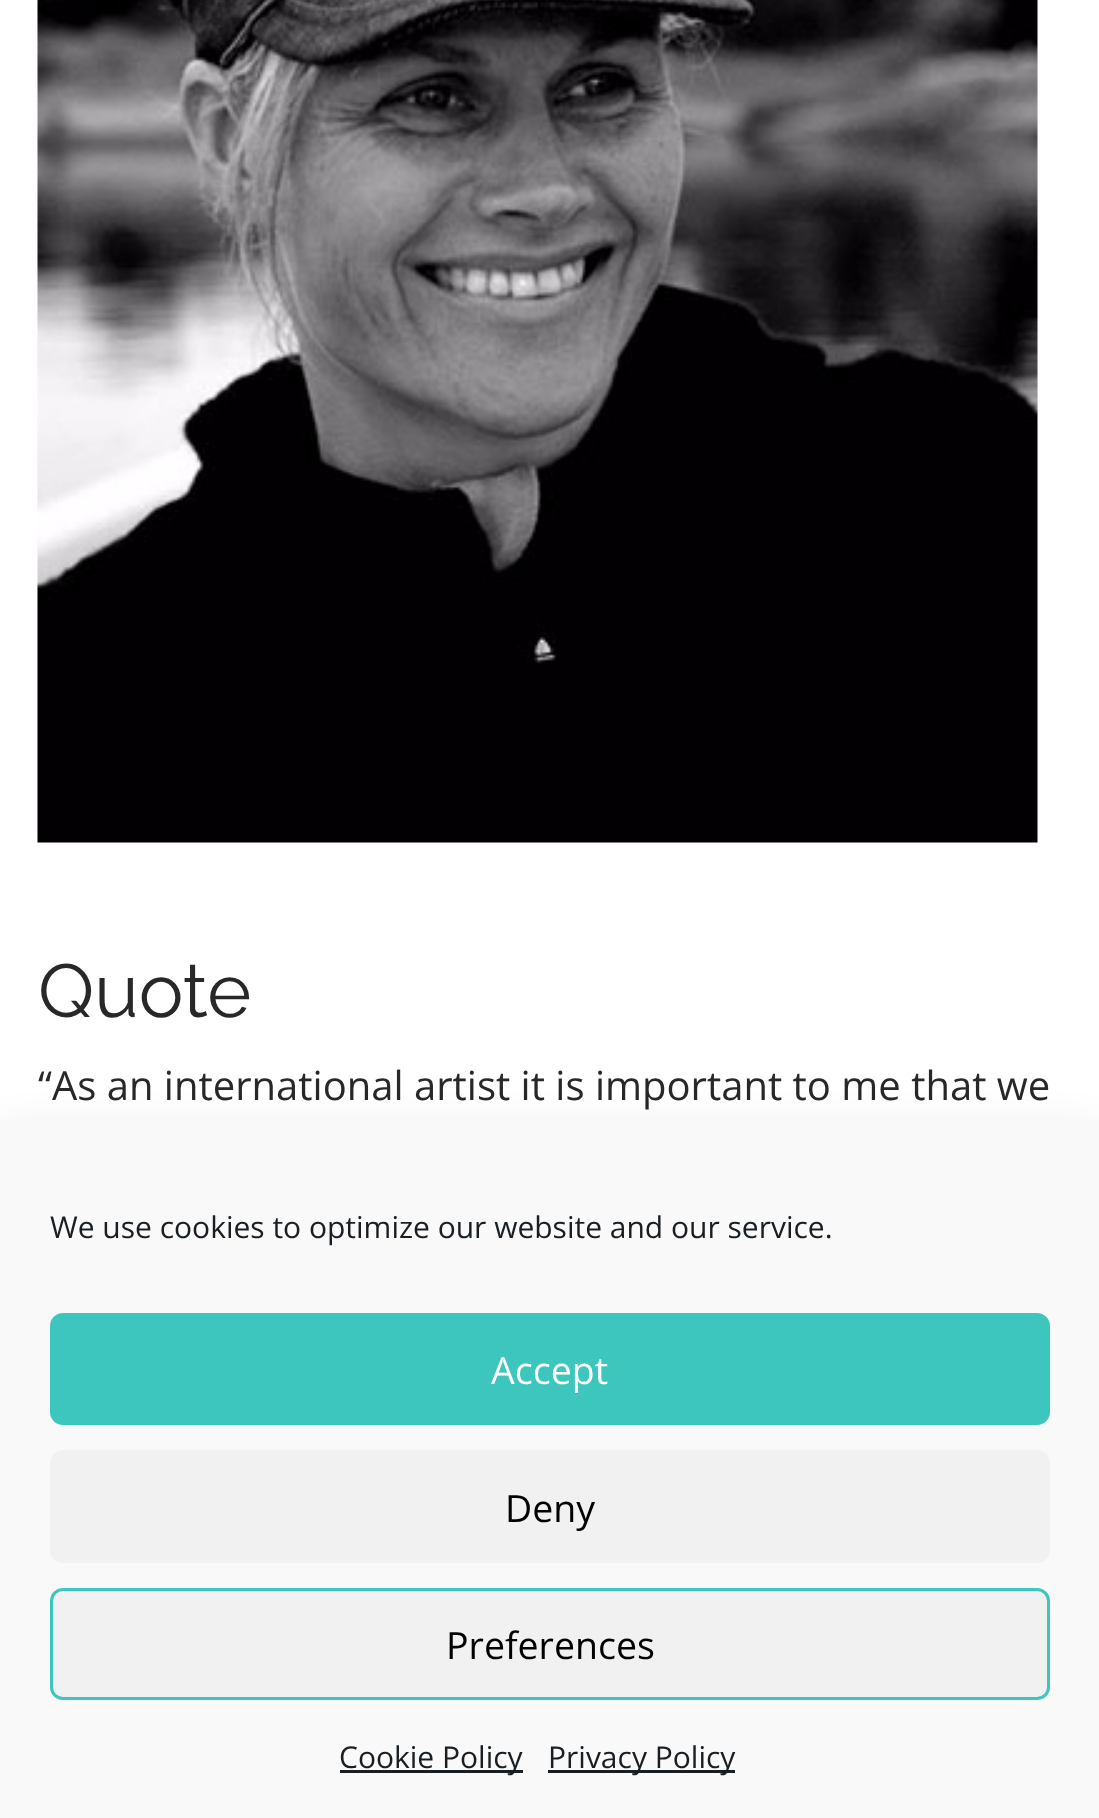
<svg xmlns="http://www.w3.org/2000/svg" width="1099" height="1818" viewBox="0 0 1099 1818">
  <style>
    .t1 { font: 100 75px Raleway; fill: #282828; }
    .t2 { font: 40px Open Sans; fill: #282828; }
    .t3 { font: 30px Open Sans; fill: #191e23; }
    .t4 { font: 37.5px Open Sans; fill: #fff; }
    .t5 { font: 37.5px Open Sans; fill: #000; }
  </style>
  <rect width="100%" height="100%" fill="#fff"/>
  <image x="37" y="0" width="1001" height="843" href="images/1.png"/>
  <text x="38" y="1017" class="t1">Quote</text>
  <text x="38" y="1100" class="t2">“As an international artist it is important to me that we</text>
  <rect x="0" y="1143" width="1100" height="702" fill="#00000030" filter="blur(25px)"/>
  <rect x="0" y="1120" width="1099" height="698" fill="#f9f9f9"/>
  <text x="50" y="1238" class="t3">We use cookies to optimize our website and our service.</text>
  <rect x="51.5" y="1314.5" width="997" height="109" rx="11.5" fill="#3dc6bd" stroke="#3dc6bd" stroke-width="3"/>
  <text x="491" y="1384" class="t4">Accept</text>
  <rect x="50" y="1450" width="1000" height="113" rx="13" fill="#f1f1f1"/>
  <text x="505" y="1522" class="t5">Deny</text>
  <rect x="51.5" y="1589.5" width="997" height="109" rx="11.5" fill="#f1f1f1" stroke="#3dc6bd" stroke-width="3"/>
  <text x="446" y="1659" class="t5">Preferences</text>
  <rect x="340" y="1770" width="183" height="3" fill="#191e23"/>
  <text x="339" y="1768" class="t3">Cookie Policy</text>
  <rect x="548" y="1770" width="187" height="3" fill="#191e23"/>
  <text x="548" y="1768" class="t3">Privacy Policy</text>
</svg>
